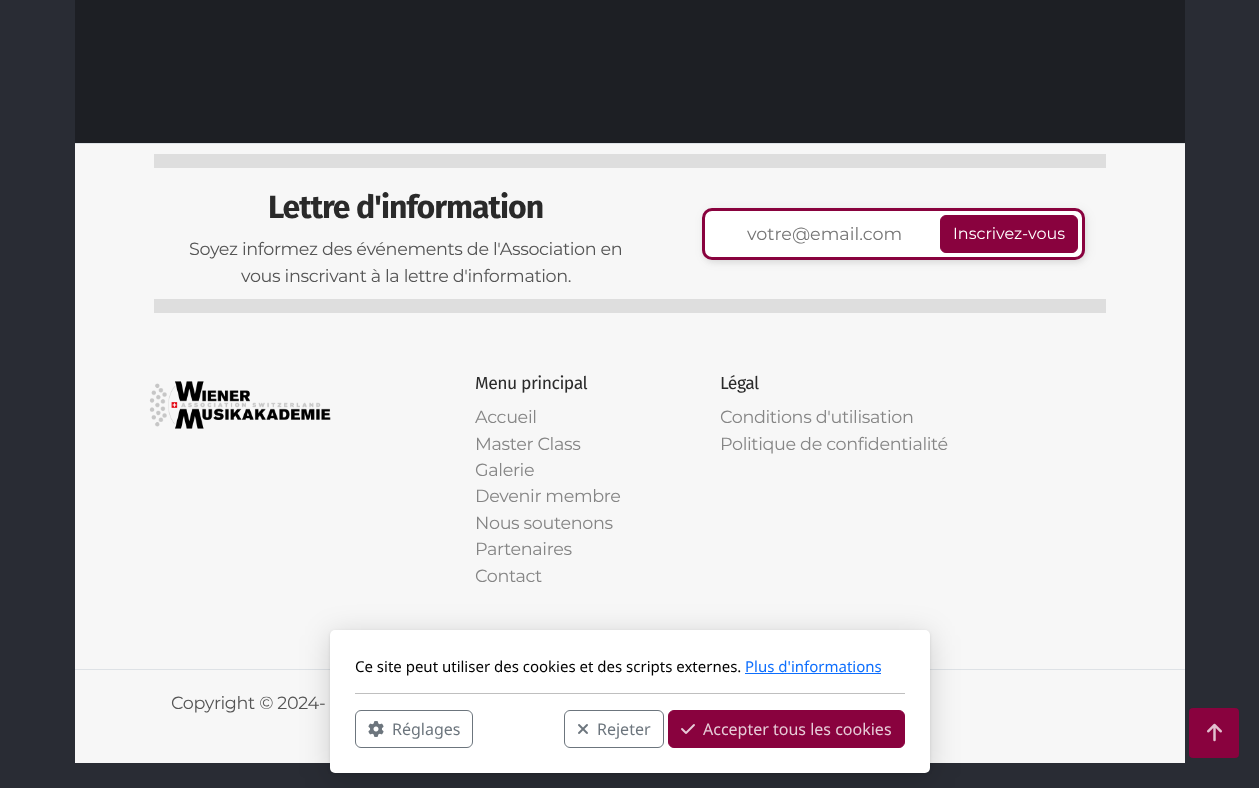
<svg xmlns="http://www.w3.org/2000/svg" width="1259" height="788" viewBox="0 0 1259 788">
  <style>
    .t1 { font: bold 32px Fira Sans; letter-spacing: -1px; fill: #2a2a2a; }
    .t2 { font: 100 17.6px Montserrat; letter-spacing: -0.35px; fill: #545454; }
    .t3 { font: 100 17.6px Montserrat; fill: #757575; }
    .t4 { font: 100 16px Montserrat; fill: #fff; }
    .t5 { font: 17.6px Fira Sans; letter-spacing: -0.5px; fill: #2a2a2a; }
    .t6 { font: 100 17.6px Montserrat; letter-spacing: -0.35px; fill: #858585; }
    .t7 { font: 15px Noto Sans; fill: #000; }
    .t8 { font: 15px Noto Sans; fill: #0d6efd; }
    .t9 { font: 16px Noto Sans; fill: #6c757d; }
    .t10 { font: 16px Noto Sans; fill: #e7ccd8; }
  </style>
  <rect width="100%" height="100%" fill="#292c34"/>
  <rect x="75" y="0" width="1110" height="143" fill="#1d1f24"/>
  <rect x="75" y="144" width="1110" height="619" fill="#f7f7f7"/>
  <rect x="75" y="143" width="1110" height="1" fill="#dee2e6"/>
  <rect x="154" y="154" width="952" height="14" fill="#dedede"/>
  <text x="268" y="218" class="t1">Lettre d'information</text>
  <text x="189" y="255" class="t2">Soyez informez des événements de l'Association en</text>
  <text x="241" y="282" class="t2">vous inscrivant à la lettre d'information.</text>
  <rect x="703" y="211" width="383" height="52" rx="10" fill="#0000000d" filter="blur(2.5px)"/>
  <rect x="706" y="212" width="379" height="48" rx="8" fill="#0000001a" filter="blur(6px)"/>
  <rect x="703.5" y="209.5" width="380" height="49" rx="8.5" fill="#fff" stroke="#89023e" stroke-width="3"/>
  <text x="747" y="240" class="t3">votre@email.com</text>
  <rect x="940.5" y="215.5" width="137" height="37" rx="5.5" fill="#89023e" stroke="#89023e"/>
  <text x="953" y="239" class="t4">Inscrivez-vous</text>
  <rect x="154" y="299" width="952" height="14" fill="#dedede"/>
  <image x="149" y="381" width="182" height="48" href="images/1.png"/>
  <text x="475" y="389" class="t5">Menu principal</text>
  <text x="475" y="423" class="t6">Accueil</text>
  <text x="475" y="450" class="t6">Master Class</text>
  <text x="475" y="476" class="t6">Galerie</text>
  <text x="475" y="502" class="t6">Devenir membre</text>
  <text x="475" y="529" class="t6">Nous soutenons</text>
  <text x="475" y="555" class="t6">Partenaires</text>
  <text x="475" y="582" class="t6">Contact</text>
  <text x="720" y="389" class="t5">Légal</text>
  <text x="720" y="423" class="t6">Conditions d'utilisation</text>
  <text x="720" y="450" class="t6">Politique de confidentialité</text>
  <rect x="75" y="669" width="1110" height="1" fill="#dee2e6"/>
  <text x="171" y="709" class="t2">Copyright © 2024-</text>
  <rect x="330" y="635" width="600" height="143" rx="5" fill="#00000029" filter="blur(15px)"/>
  <rect x="330" y="631" width="600" height="143" rx="5" fill="#0000001a" filter="blur(1.5px)"/>
  <rect x="330" y="630" width="600" height="143" rx="5" fill="#fff"/>
  <text x="355" y="672" class="t7">Ce site peut utiliser des cookies et des scripts externes.</text>
  <text x="745" y="672" class="t8">Plus d'informations</text>
  <rect x="745" y="673" width="136" height="1" fill="#0d6efd"/>
  <rect x="355" y="693" width="550" height="1" fill="#bfbfbf"/>
  <rect x="355.5" y="710.5" width="117" height="37" rx="5.5" fill="none" stroke="#6c757d"/>
  <image x="368" y="721" width="16" height="16" href="images/2.png"/>
  <text x="392" y="735" class="t9">Réglages</text>
  <rect x="564.5" y="710.5" width="99" height="37" rx="5.5" fill="none" stroke="#6c757d"/>
  <image x="578" y="724" width="10" height="10" href="images/3.png"/>
  <text x="597" y="735" class="t9">Rejeter</text>
  <rect x="668.5" y="710.5" width="236" height="37" rx="5.5" fill="#89023e" stroke="#89023e"/>
  <image x="681" y="724" width="14" height="10" href="images/4.png"/>
  <text x="703" y="735" class="t10">Accepter tous les cookies</text>
  <rect x="1189" y="708" width="50" height="50" rx="4" fill="#89023e"/>
  <image x="1207" y="723" width="15" height="19" href="images/5.png"/>
</svg>
